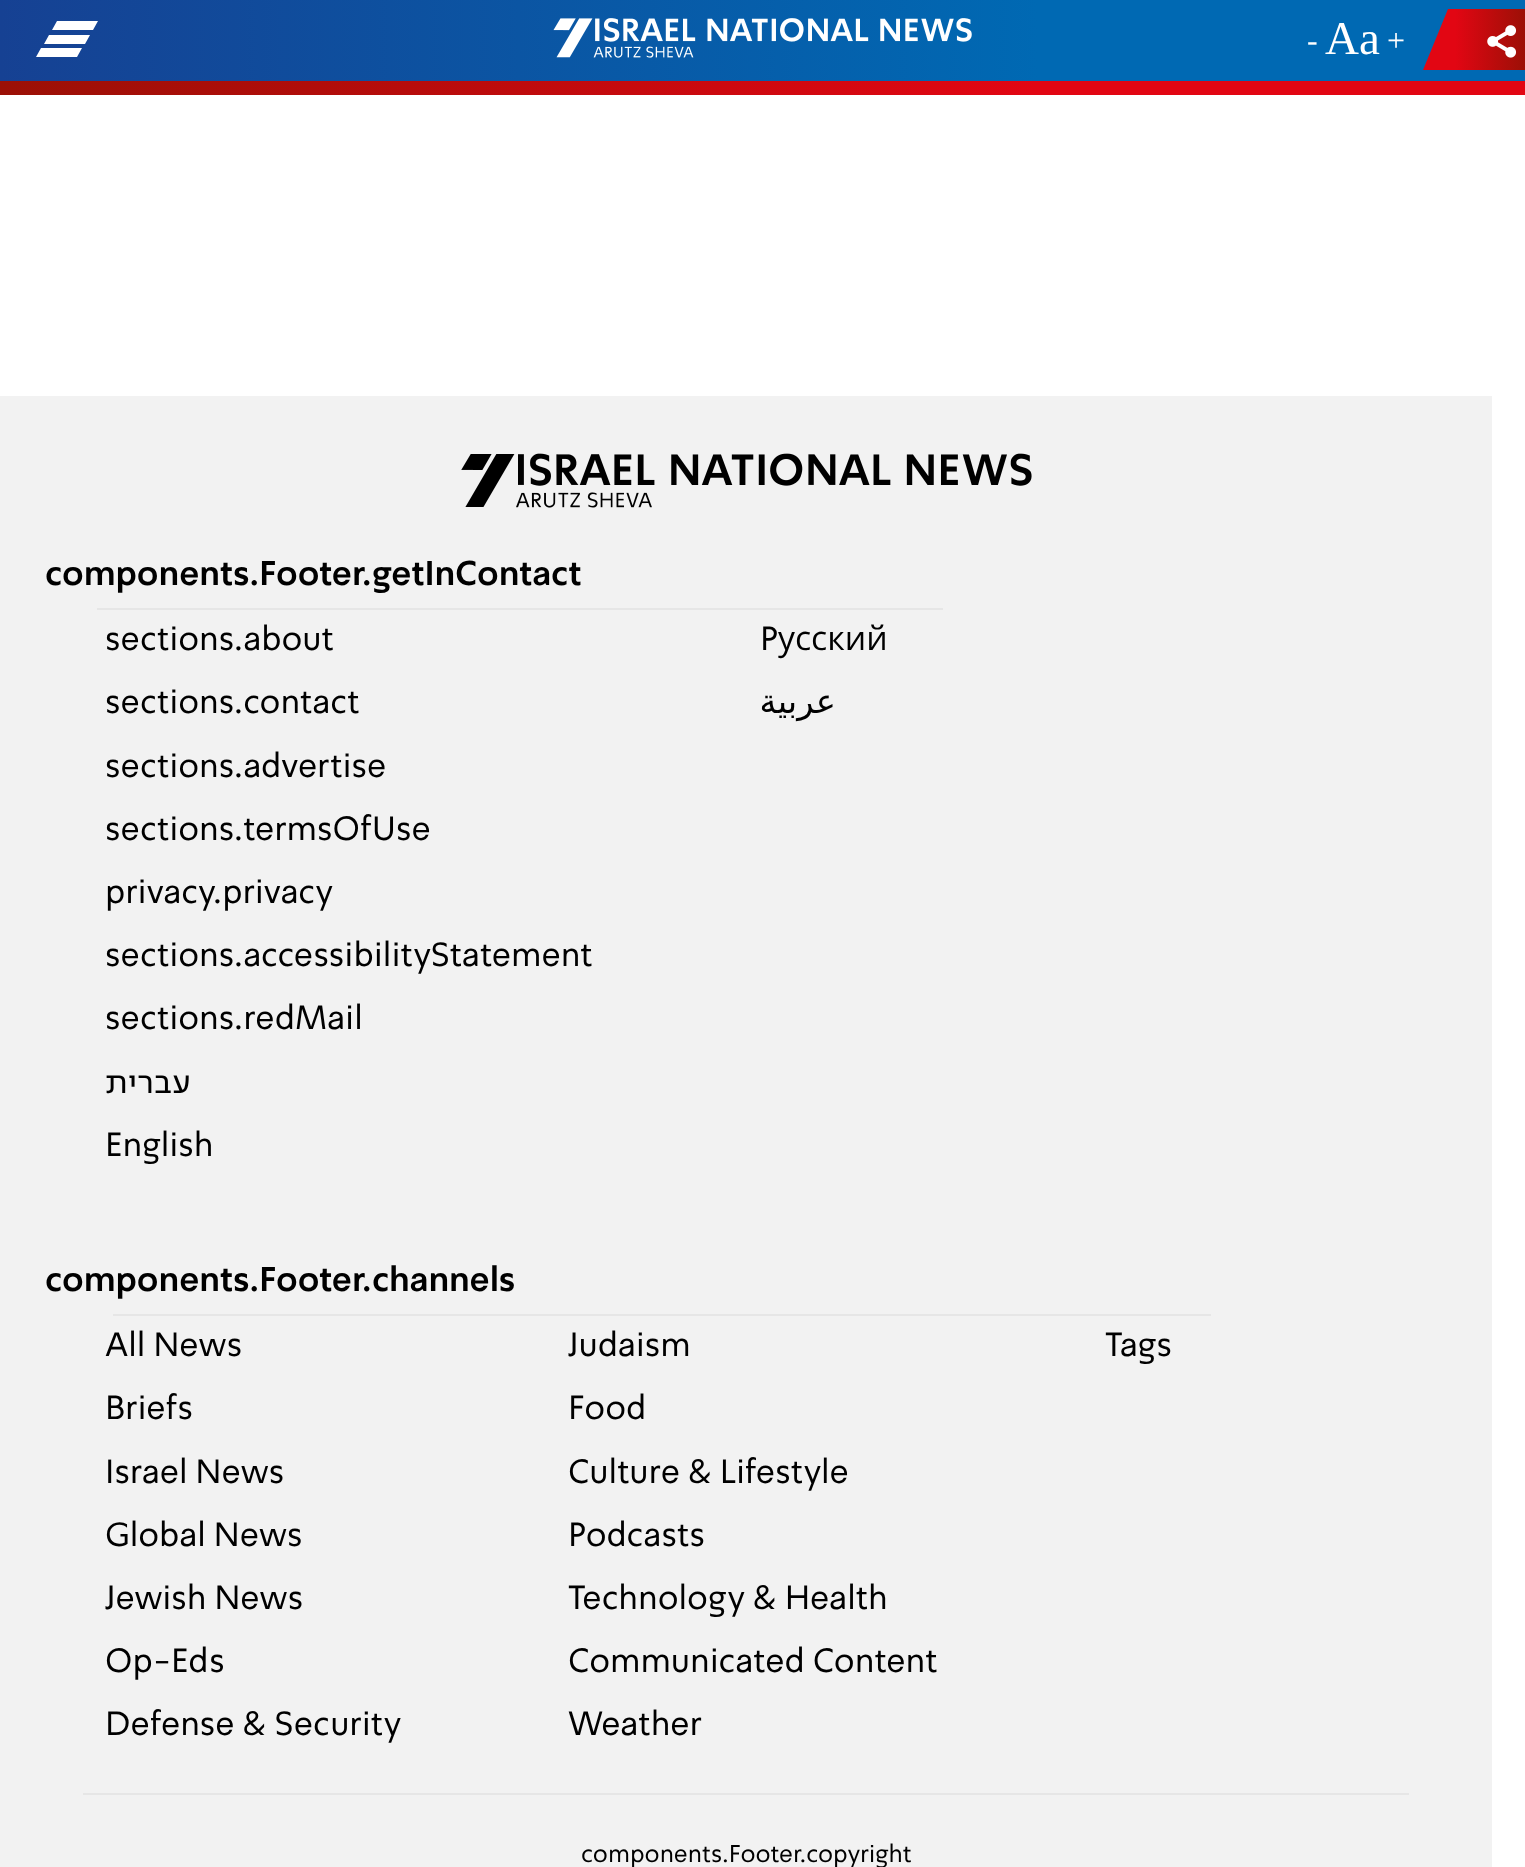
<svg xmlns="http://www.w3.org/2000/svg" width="1525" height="1867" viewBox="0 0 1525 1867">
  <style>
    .t1 { font: 32px Liberation Serif; fill: #fff; }
    .t2 { font: 47px Liberation Serif; fill: #fff; }
    .t3 { font: bold 33.75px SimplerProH; fill: #000; }
    .t4 { font: 33.75px SimplerProH; fill: #000; }
    .t5 { font: 33.75px Open Sans; fill: #000; }
    .t6 { font: 33.75px DejaVu Sans; direction: rtl; fill: #000; }
    .t7 { font: 33.75px SimplerProH; direction: rtl; fill: #000; }
    .t8 { font: 24.4px SimplerProH; fill: #000; }
  </style>
  <defs>
    <linearGradient id="g1" gradientUnits="userSpaceOnUse" x1="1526" y1="40" x2="0" y2="41"><stop offset="0.32" stop-color="#0069b3"/><stop offset="1" stop-color="#164193"/></linearGradient>
    <linearGradient id="g2" gradientUnits="userSpaceOnUse" x1="1422" y1="39" x2="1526" y2="39"><stop offset="0.32" stop-color="#e20613"/><stop offset="1" stop-color="#9b1006"/></linearGradient>
    <linearGradient id="g3" gradientUnits="userSpaceOnUse" x1="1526" y1="87" x2="0" y2="87"><stop offset="0.32" stop-color="#e20613"/><stop offset="1" stop-color="#9b1006"/></linearGradient>
  </defs>
  <rect width="100%" height="100%" fill="#fff"/>
  <rect x="0" y="0" width="1525" height="81" fill="url(#g1)"/>
  <path d="M49 35L44 44H85L90 35ZM57 21L52 30H93L98 21ZM77 57L82 48H41L36 57Z" fill="#fff"/>
  <image x="553" y="18" width="419" height="40" href="images/1.png"/>
  <text x="1307" y="51" class="t1">-</text>
  <text x="1325" y="54" class="t2">Aa</text>
  <text x="1387" y="51" class="t1">+</text>
  <path d="M1448 9L1423 70H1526V9Z" fill="url(#g2)"/>
  <image x="1487" y="25" width="30" height="33" href="images/2.png"/>
  <rect x="0" y="81" width="1525" height="14" fill="url(#g3)"/>
  <rect x="0" y="396" width="1492" height="1471" fill="#f2f2f2"/>
  <image x="461" y="453" width="571" height="55" href="images/3.png"/>
  <text x="45" y="585" class="t3">components.Footer.getInContact</text>
  <rect x="97" y="608" width="846" height="2" fill="#e6e6e6"/>
  <text x="105" y="650" class="t4">sections.about</text>
  <text x="760" y="650" class="t4">P</text>
  <text x="778" y="650" class="t5">усский</text>
  <text x="105" y="713" class="t4">sections.contact</text>
  <text x="836" y="713" class="t6">عربية</text>
  <text x="105" y="777" class="t4">sections.advertise</text>
  <text x="105" y="840" class="t4">sections.termsOfUse</text>
  <text x="105" y="903" class="t4">privacy.privacy</text>
  <text x="105" y="966" class="t4">sections.accessibilityStatement</text>
  <text x="105" y="1029" class="t4">sections.redMail</text>
  <text x="191" y="1093" class="t7">עברית</text>
  <text x="105" y="1156" class="t4">English</text>
  <text x="45" y="1291" class="t3">components.Footer.channels</text>
  <rect x="113" y="1314" width="1098" height="2" fill="#e6e6e6"/>
  <text x="105" y="1356" class="t4">All News</text>
  <text x="568" y="1356" class="t4">Judaism</text>
  <text x="1105" y="1356" class="t4">Tags</text>
  <text x="105" y="1419" class="t4">Briefs</text>
  <text x="568" y="1419" class="t4">Food</text>
  <text x="105" y="1483" class="t4">Israel News</text>
  <text x="568" y="1483" class="t4">Culture &amp; Lifestyle</text>
  <text x="105" y="1546" class="t4">Global News</text>
  <text x="568" y="1546" class="t4">Podcasts</text>
  <text x="105" y="1609" class="t4">Jewish News</text>
  <text x="568" y="1609" class="t4">Technology &amp; Health</text>
  <text x="105" y="1672" class="t4">Op-Eds</text>
  <text x="568" y="1672" class="t4">Communicated Content</text>
  <text x="105" y="1735" class="t4">Defense &amp; Security</text>
  <text x="568" y="1735" class="t4">Weather</text>
  <rect x="83" y="1793" width="1326" height="2" fill="#e6e6e6"/>
  <text x="581" y="1862" class="t8">components.Footer.copyright</text>
</svg>
